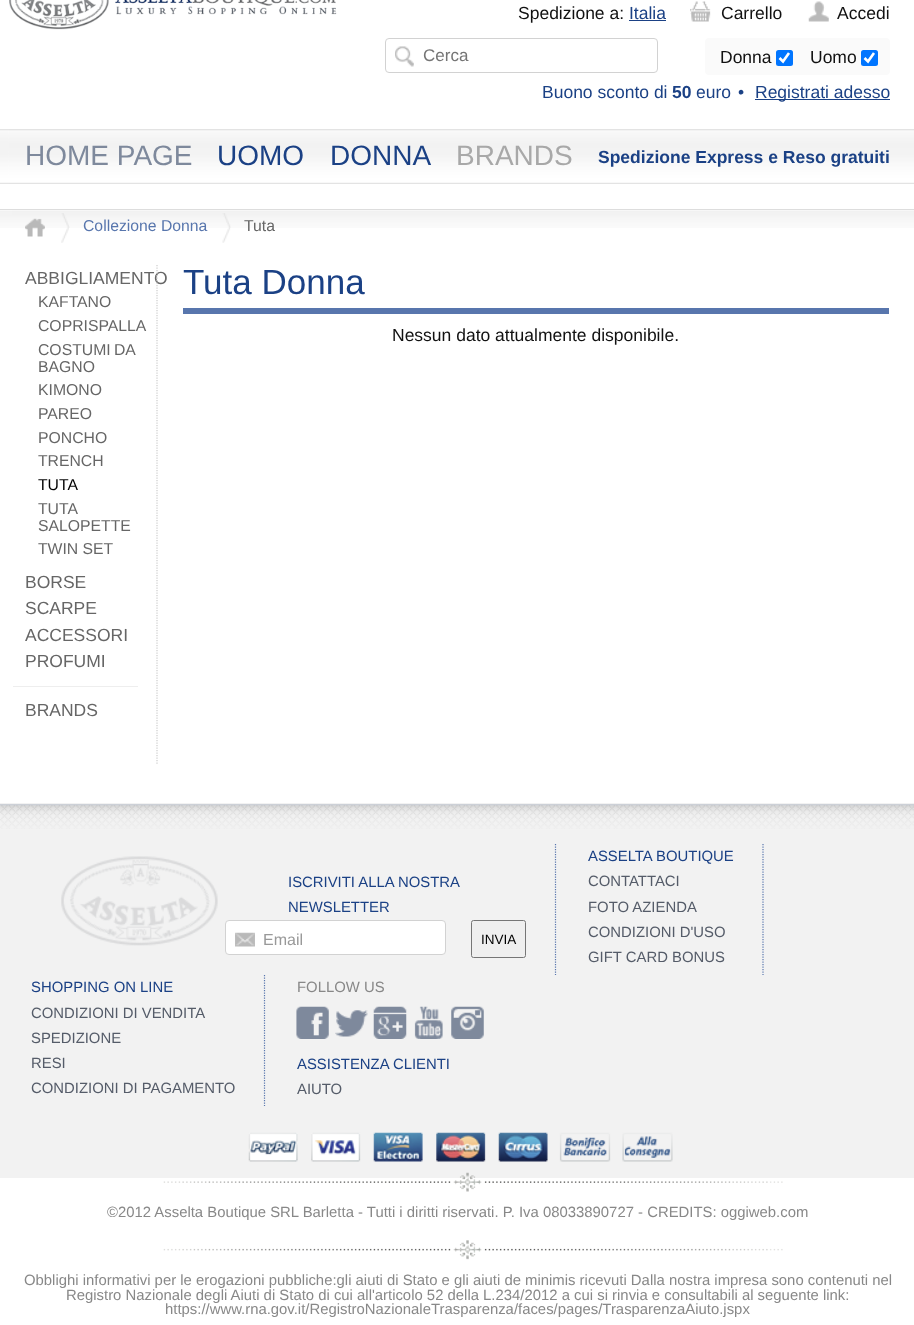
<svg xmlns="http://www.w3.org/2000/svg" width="914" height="1325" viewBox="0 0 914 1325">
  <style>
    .t1 { font: 17.5px Liberation Sans; fill: #111; }
    .t2 { font: 17.5px Liberation Sans; fill: #1b4185; }
    .t3 { font: 17px Liberation Sans; fill: #757575; }
    .t4 { font: bold 17.5px Liberation Sans; fill: #1b4185; }
    .t5 { font: 28px Liberation Sans; fill: #7e899c; }
    .t6 { font: 28px Liberation Sans; fill: #1b4185; }
    .t7 { font: 28px Liberation Sans; fill: #a8a8a8; }
    .t8 { font: 15.75px Liberation Sans; fill: #5876ad; }
    .t9 { font: 15.75px Liberation Sans; fill: #666; }
    .t10 { font: 17.5px Liberation Sans; fill: #666; }
    .t11 { font: 15.75px Liberation Sans; fill: #000; }
    .t12 { font: 35px Liberation Sans; fill: #1b4185; }
    .t13 { font: 14.88px Liberation Sans; fill: #1b4185; }
    .t14 { font: 16px Liberation Sans; fill: #999; }
    .t15 { font: 13.5px Liberation Sans; fill: #000; }
    .t16 { font: 14.88px Liberation Sans; fill: #555c69; }
    .t17 { font: 14.88px Liberation Sans; fill: #888; }
  </style>
  <rect width="100%" height="100%" fill="#fff"/>
  <image x="9" y="0" width="328" height="30" href="images/1.png"/>
  <text x="518" y="19" class="t1">Spedizione a:</text>
  <text x="629" y="19" class="t2">Italia</text>
  <rect x="629" y="20" width="37" height="1" fill="#1b4185"/>
  <image x="690" y="1" width="21" height="21" href="images/2.png"/>
  <text x="721" y="19" class="t1">Carrello</text>
  <image x="808" y="1" width="21" height="21" href="images/3.png"/>
  <text x="837" y="19" class="t1">Accedi</text>
  <rect x="385.5" y="38.5" width="272" height="34" rx="3.5" fill="none" stroke="#d2d2d2"/>
  <image x="395" y="46" width="19" height="21" href="images/4.png"/>
  <text x="423" y="61" class="t3">Cerca</text>
  <rect x="705" y="38" width="185" height="37" rx="4" fill="#fafafa"/>
  <text x="720" y="63" class="t1">Donna</text>
  <rect x="776" y="50" width="17" height="16" rx="2.5" fill="#0075ff"/>
  <path d="M779.5 58L783 61.5L789 53" fill="none" stroke="#fff" stroke-width="2.6"/>
  <text x="810" y="63" class="t1">Uomo</text>
  <rect x="861" y="50" width="17" height="16" rx="2.5" fill="#0075ff"/>
  <path d="M864.5 58L868 61.5L874 53" fill="none" stroke="#fff" stroke-width="2.6"/>
  <text x="542" y="98" class="t2">Buono sconto di</text>
  <text x="672" y="98" class="t4">50</text>
  <text x="696" y="98" class="t2">euro</text>
  <text x="738" y="98" class="t2">•</text>
  <rect x="755" y="99" width="135" height="1" fill="#1b4185"/>
  <text x="755" y="98" class="t2">Registrati adesso</text>
  <image x="0" y="129" width="914" height="55" href="images/5.png"/>
  <text x="25" y="165" class="t5">HOME PAGE</text>
  <text x="217" y="165" class="t6">UOMO</text>
  <text x="330" y="165" class="t6">DONNA</text>
  <text x="456" y="165" class="t7">BRANDS</text>
  <text x="598" y="163" class="t4">Spedizione Express e Reso gratuiti</text>
  <rect x="0" y="209" width="914" height="1" fill="#ddd"/>
  <image x="0" y="210" width="914" height="18" href="images/6.png"/>
  <image x="25" y="218" width="20" height="19" href="images/7.png"/>
  <image x="61" y="213" width="9" height="30" href="images/8.png"/>
  <text x="83" y="231" class="t8">Collezione Donna</text>
  <image x="222" y="213" width="9" height="30" href="images/9.png"/>
  <text x="244" y="231" class="t9">Tuta</text>
  <text x="25" y="284" class="t10">ABBIGLIAMENTO</text>
  <text x="38" y="307" class="t9">KAFTANO</text>
  <text x="38" y="331" class="t9">COPRISPALLA</text>
  <text x="38" y="355" word-spacing="-1" class="t9">COSTUMI DA</text>
  <text x="38" y="372" class="t9">BAGNO</text>
  <text x="38" y="395" class="t9">KIMONO</text>
  <text x="38" y="419" class="t9">PAREO</text>
  <text x="38" y="443" class="t9">PONCHO</text>
  <text x="38" y="466" class="t9">TRENCH</text>
  <text x="38" y="490" class="t11">TUTA</text>
  <text x="38" y="514" class="t9">TUTA</text>
  <text x="38" y="531" class="t9">SALOPETTE</text>
  <text x="38" y="554" class="t9">TWIN SET</text>
  <text x="25" y="588" class="t10">BORSE</text>
  <text x="25" y="614" class="t10">SCARPE</text>
  <text x="25" y="641" class="t10">ACCESSORI</text>
  <text x="25" y="667" class="t10">PROFUMI</text>
  <rect x="13" y="686" width="125" height="1" fill="#eee"/>
  <text x="25" y="716" class="t10">BRANDS</text>
  <path d="M157 265V765" fill="none" stroke="#ccc" stroke-width="1.2" stroke-dasharray="1.25 1.25"/>
  <rect x="183" y="308" width="706" height="6" fill="#5876ad"/>
  <text x="183" y="294" class="t12">Tuta Donna</text>
  <text x="392" y="341" class="t1">Nessun dato attualmente disponibile.</text>
  <rect x="0" y="803" width="914" height="375" fill="#f2f2f2"/>
  <image x="0" y="804" width="914" height="25" href="images/10.png"/>
  <path d="M555.5 844V975" fill="none" stroke="#5876ad" stroke-width="1.2" stroke-dasharray="1.25 1.25"/>
  <image x="61" y="856" width="157" height="90" href="images/11.png"/>
  <text x="288" y="887" class="t13">ISCRIVITI ALLA NOSTRA</text>
  <text x="288" y="912" class="t13">NEWSLETTER</text>
  <rect x="225.5" y="920.5" width="220" height="34" rx="3.5" fill="#fff" stroke="#d2d2d2"/>
  <image x="235" y="932" width="20" height="15" href="images/12.png"/>
  <text x="263" y="945" class="t14">Email</text>
  <rect x="471.5" y="920.5" width="54" height="37" rx="2" fill="#efefef" stroke="#767676"/>
  <text x="481" y="944" class="t15">INVIA</text>
  <path d="M763 844V975" fill="none" stroke="#5876ad" stroke-width="1.2" stroke-dasharray="1.25 1.25"/>
  <text x="588" y="861" class="t13">ASSELTA BOUTIQUE</text>
  <text x="588" y="886" class="t16">CONTATTACI</text>
  <text x="588" y="912" class="t16">FOTO AZIENDA</text>
  <text x="588" y="937" class="t16">CONDIZIONI D'USO</text>
  <text x="588" y="962" class="t16">GIFT CARD BONUS</text>
  <path d="M264.5 975V1106" fill="none" stroke="#5876ad" stroke-width="1.2" stroke-dasharray="1.25 1.25"/>
  <text x="31" y="992" class="t13">SHOPPING ON LINE</text>
  <text x="31" y="1018" class="t16">CONDIZIONI DI VENDITA</text>
  <text x="31" y="1043" class="t16">SPEDIZIONE</text>
  <text x="31" y="1068" class="t16">RESI</text>
  <text x="31" y="1093" class="t16">CONDIZIONI DI PAGAMENTO</text>
  <text x="297" y="992" class="t17">FOLLOW US</text>
  <image x="296" y="1006" width="33" height="33" href="images/13.png"/>
  <image x="335" y="1010" width="33" height="27" href="images/14.png"/>
  <image x="373" y="1006" width="34" height="33" href="images/15.png"/>
  <image x="414" y="1006" width="29" height="33" href="images/16.png"/>
  <image x="451" y="1006" width="33" height="33" href="images/17.png"/>
  <text x="297" y="1069" class="t13">ASSISTENZA CLIENTI</text>
  <text x="297" y="1094" class="t16">AIUTO</text>
  <image x="248" y="1132" width="425" height="30" href="images/18.png"/>
  <image x="163" y="1172" width="620" height="20" href="images/19.png"/>
  <text x="107" y="1217" class="t17">©2012 Asselta Boutique SRL Barletta - Tutti i diritti riservati. P. Iva 08033890727 - CREDITS: oggiweb.com</text>
  <image x="163" y="1240" width="620" height="20" href="images/20.png"/>
  <text x="24" y="1285" class="t17">Obblighi informativi per le erogazioni pubbliche:gli aiuti di Stato e gli aiuti de minimis ricevuti Dalla nostra impresa sono contenuti nel</text>
  <text x="66" y="1300" class="t17">Registro Nazionale degli Aiuti di Stato di cui all'articolo 52 della L.234/2012 a cui si rinvia e consultabili al seguente link:</text>
  <text x="165" y="1314" class="t17">https://www.rna.gov.it/RegistroNazionaleTrasparenza/faces/pages/TrasparenzaAiuto.jspx</text>
</svg>
